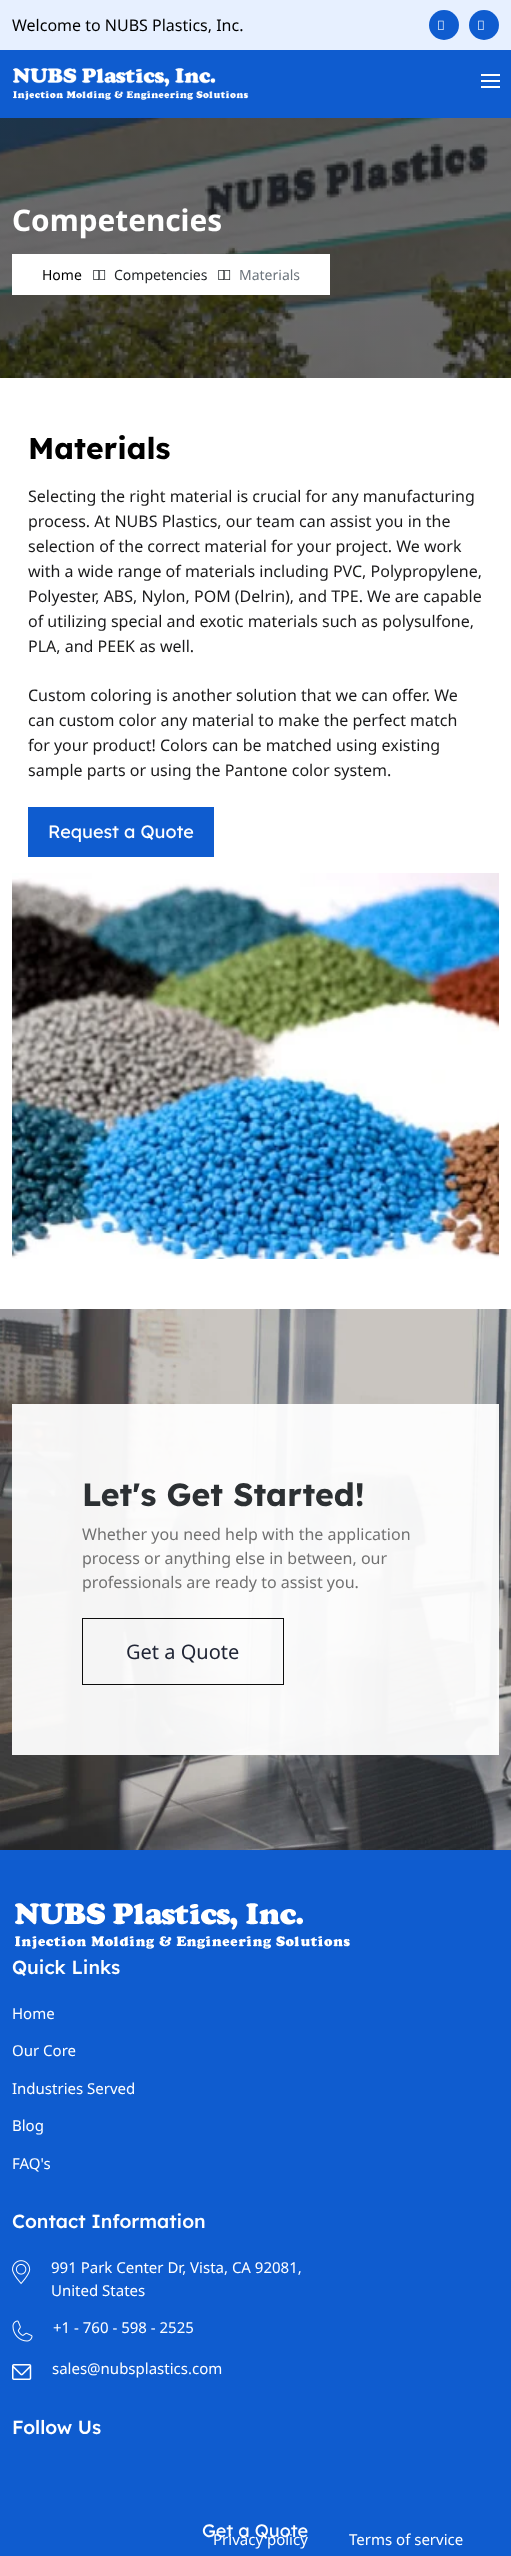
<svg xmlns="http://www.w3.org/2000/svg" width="511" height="2556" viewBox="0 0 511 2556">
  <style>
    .t1 { font: 16px Noto Sans; fill: #000; }
    .t2 { font: 18px Lexend; fill: #fff; }
    .t3 { font: bold 29.75px Noto Sans; fill: #fff; }
    .t4 { font: 14px Noto Sans; fill: #000; }
    .t5 { font: 14px Noto Sans; fill: #212529; }
    .t6 { font: 14px Noto Sans; fill: #6c757d; }
    .t7 { font: bold 30px Lexend; fill: #000; }
    .t8 { font: 16px Noto Sans; fill: #1a1a1b; }
    .t9 { font: bold 32px Lexend; fill: #2c3033; }
    .t10 { font: 16px Noto Sans; fill: #717171; }
    .t11 { font: 20px Noto Sans; fill: #212636; }
    .t12 { font: 500 19px Lexend; fill: #fff; }
    .t13 { font: 15px Noto Sans; fill: #fff; }
  </style>
  <rect width="100%" height="100%" fill="#fff"/>
  <rect x="0" y="0" width="511" height="50" fill="#e7f0ff"/>
  <text x="12" y="31" class="t1">Welcome to NUBS Plastics, Inc.</text>
  <circle cx="444" cy="25" r="15" fill="#0f5ccf"/>
  <image x="438" y="20" width="6" height="10" href="images/1.png"/>
  <circle cx="484" cy="25" r="15" fill="#0f5ccf"/>
  <image x="478" y="20" width="6" height="10" href="images/1.png"/>
  <rect x="0" y="50" width="511" height="68" fill="#0f5ccf"/>
  <image x="13" y="68" width="236" height="32" href="images/2.png"/>
  <rect x="481" y="74" width="19" height="2" fill="#fff"/>
  <rect x="481" y="80" width="19" height="2" fill="#fff"/>
  <rect x="481" y="86" width="19" height="2" fill="#fff"/>
  <rect x="0" y="1850" width="511" height="706" fill="#0f5ccf"/>
  <text x="202" y="2537" class="t2">Get a Quote</text>
  <image x="0" y="118" width="511" height="260" href="images/3.png"/>
  <text x="12" y="231" class="t3">Competencies</text>
  <rect x="12" y="254" width="318" height="41" fill="#fff"/>
  <text x="42" y="280" class="t4">Home</text>
  <image x="93" y="270" width="7" height="10" href="images/4.png"/>
  <image x="99" y="270" width="7" height="10" href="images/5.png"/>
  <text x="114" y="280" class="t5">Competencies</text>
  <image x="218" y="270" width="7" height="10" href="images/4.png"/>
  <image x="224" y="270" width="7" height="10" href="images/5.png"/>
  <text x="239" y="280" class="t6">Materials</text>
  <text x="28" y="459" class="t7">Materials</text>
  <text x="28" y="502" class="t8">Selecting the right material is crucial for any manufacturing</text>
  <text x="28" y="527" class="t8">process. At NUBS Plastics, our team can assist you in the</text>
  <text x="28" y="552" class="t8">selection of the correct material for your project. We work</text>
  <text x="28" y="577" class="t8">with a wide range of materials including PVC, Polypropylene,</text>
  <text x="28" y="602" class="t8">Polyester, ABS, Nylon, POM (Delrin), and TPE. We are capable</text>
  <text x="28" y="627" class="t8">of utilizing special and exotic materials such as polysulfone,</text>
  <text x="28" y="652" class="t8">PLA, and PEEK as well.</text>
  <text x="28" y="701" class="t8">Custom coloring is another solution that we can offer. We</text>
  <text x="28" y="726" class="t8">can custom color any material to make the perfect match</text>
  <text x="28" y="751" class="t8">for your product! Colors can be matched using existing</text>
  <text x="28" y="776" class="t8">sample parts or using the Pantone color system.</text>
  <rect x="28" y="807" width="186" height="50" fill="#0f5ccf"/>
  <text x="48" y="838" class="t2">Request a Quote</text>
  <image x="12" y="873" width="487" height="386" href="images/6.png"/>
  <image x="0" y="1309" width="511" height="541" href="images/7.png"/>
  <rect x="12" y="1404" width="487" height="351" fill="#fffffff2"/>
  <text x="82" y="1506" class="t9">Let's Get Started!</text>
  <text x="82" y="1540" class="t10">Whether you need help with the application</text>
  <text x="82" y="1564" class="t10">process or anything else in between, our</text>
  <text x="82" y="1588" class="t10">professionals are ready to assist you.</text>
  <rect x="82.5" y="1618.5" width="201" height="66" fill="none" stroke="#000000f2"/>
  <text x="126" y="1659" class="t11">Get a Quote</text>
  <image x="15" y="1903" width="335" height="46" href="images/8.png"/>
  <text x="12" y="1974" class="t12">Quick Links</text>
  <text x="12" y="2019" class="t13">Home</text>
  <text x="12" y="2056" class="t13">Our Core</text>
  <text x="12" y="2094" class="t13">Industries Served</text>
  <text x="12" y="2131" class="t13">Blog</text>
  <text x="12" y="2169" class="t13">FAQ's</text>
  <text x="12" y="2228" class="t12">Contact Information</text>
  <image x="12" y="2260" width="19" height="25" href="images/9.png"/>
  <text x="51" y="2273" class="t13">991 Park Center Dr, Vista, CA 92081,</text>
  <text x="51" y="2296" class="t13">United States</text>
  <image x="12" y="2320" width="21" height="22" href="images/10.png"/>
  <text x="53" y="2333" class="t13">+1 - 760 - 598 - 2525</text>
  <image x="12" y="2364" width="20" height="16" href="images/11.png"/>
  <text x="52" y="2374" class="t13">sales@nubsplastics.com</text>
  <text x="12" y="2434" class="t12">Follow Us</text>
  <text x="213" y="2545" class="t13">Privacy policy</text>
  <text x="349" y="2545" class="t13">Terms of service</text>
</svg>
